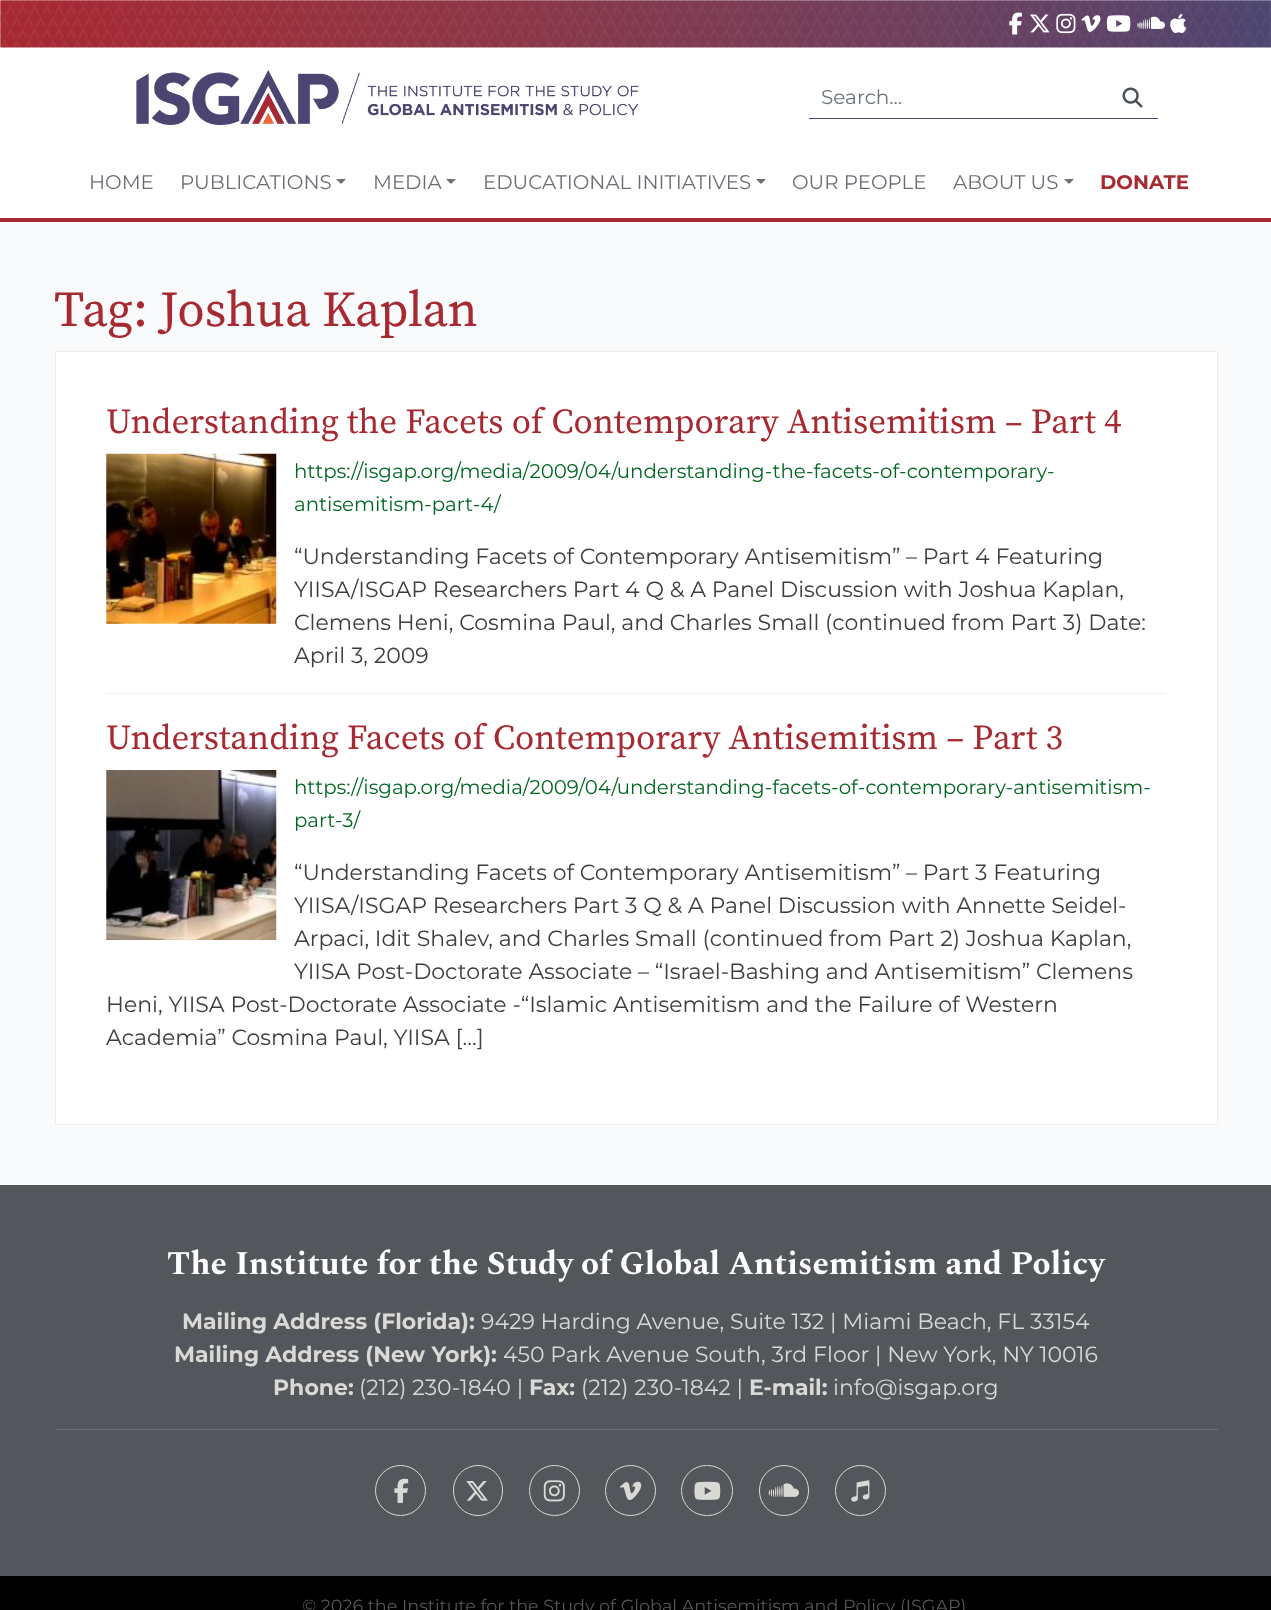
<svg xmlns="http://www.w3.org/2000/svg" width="1271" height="1610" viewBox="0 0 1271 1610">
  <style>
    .t1 { font: 20px Montserrat; fill: #6c757d; }
    .t2 { font: 19.8px Montserrat; fill: #6b6f75; }
    .t3 { font: bold 19.8px Montserrat; fill: #a72931; }
    .t4 { font: 50px Source Serif Pro; fill: #a72931; }
    .t5 { font: 35px Source Serif Pro; fill: #a72931; }
    .t6 { font: 19.8px Montserrat; fill: #006621; }
    .t7 { font: 22px Montserrat; fill: #3d3d3d; }
    .t8 { font: bold 33px Spectral; fill: #fff; }
    .t9 { font: bold 22px Montserrat; fill: #d9d9d6; }
    .t10 { font: 22px Montserrat; fill: #d9d9d6; }
    .t11 { font: 17.6px Montserrat; fill: #53565a; }
  </style>
  <rect width="100%" height="100%" fill="#f9fafb"/>
  <rect x="0" y="0" width="1271" height="218" fill="#fff"/>
  <image x="0" y="0" width="1271" height="48" href="images/1.png"/>
  <image x="1009" y="12" width="13" height="23" href="images/2.png"/>
  <image x="1030" y="14" width="20" height="19" href="images/3.png"/>
  <image x="1056" y="13" width="20" height="21" href="images/4.png"/>
  <image x="1081" y="15" width="20" height="17" href="images/5.png"/>
  <image x="1106" y="15" width="25" height="17" href="images/6.png"/>
  <image x="1137" y="16" width="28" height="13" href="images/7.png"/>
  <image x="1170" y="13" width="17" height="21" href="images/8.png"/>
  <image x="136" y="70" width="503" height="55" href="images/9.png"/>
  <rect x="809" y="118" width="349" height="1" fill="#4b4470"/>
  <text x="821" y="104" class="t1">Search...</text>
  <image x="1122" y="87" width="21" height="21" href="images/10.png"/>
  <rect x="0" y="218" width="1271" height="4" fill="#a72931"/>
  <text x="89" y="189" class="t2">HOME</text>
  <text x="180" y="189" class="t2">PUBLICATIONS</text>
  <path d="M336 179H346L341 184Z" fill="#6b6f75"/>
  <text x="373" y="189" class="t2">MEDIA</text>
  <path d="M446 179H456L451 184Z" fill="#6b6f75"/>
  <text x="483" y="189" class="t2">EDUCATIONAL INITIATIVES</text>
  <path d="M756 179H766L761 184Z" fill="#6b6f75"/>
  <text x="792" y="189" class="t2">OUR PEOPLE</text>
  <text x="953" y="189" class="t2">ABOUT US</text>
  <path d="M1064 179H1074L1069 184Z" fill="#6b6f75"/>
  <text x="1100" y="189" class="t3">DONATE</text>
  <text x="54" y="326" class="t4">Tag: Joshua Kaplan</text>
  <rect x="55.5" y="351.5" width="1162" height="773" fill="#fff" stroke="#eee"/>
  <rect x="106" y="693" width="1060" height="1" fill="#efeff0"/>
  <text x="106" y="433" class="t5">Understanding the Facets of Contemporary Antisemitism – Part 4</text>
  <image x="106" y="453" width="171" height="171" href="images/11.png"/>
  <text x="294" y="478" class="t6">https://isgap.org/media/2009/04/understanding-the-facets-of-contemporary-</text>
  <text x="294" y="511" class="t6">antisemitism-part-4/</text>
  <text x="294" y="564" class="t7">“Understanding Facets of Contemporary Antisemitism” – Part 4 Featuring</text>
  <text x="294" y="597" class="t7">YIISA/ISGAP Researchers Part 4 Q &amp; A Panel Discussion with Joshua Kaplan,</text>
  <text x="294" y="630" class="t7">Clemens Heni, Cosmina Paul, and Charles Small (continued from Part 3) Date:</text>
  <text x="294" y="663" class="t7">April 3, 2009</text>
  <text x="106" y="749" class="t5">Understanding Facets of Contemporary Antisemitism – Part 3</text>
  <image x="106" y="770" width="171" height="170" href="images/12.png"/>
  <text x="294" y="794" class="t6">https://isgap.org/media/2009/04/understanding-facets-of-contemporary-antisemitism-</text>
  <text x="294" y="827" class="t6">part-3/</text>
  <text x="294" y="880" class="t7">“Understanding Facets of Contemporary Antisemitism” – Part 3 Featuring</text>
  <text x="294" y="913" class="t7">YIISA/ISGAP Researchers Part 3 Q &amp; A Panel Discussion with Annette Seidel-</text>
  <text x="294" y="946" class="t7">Arpaci, Idit Shalev, and Charles Small (continued from Part 2) Joshua Kaplan,</text>
  <text x="294" y="979" class="t7">YIISA Post-Doctorate Associate – “Israel-Bashing and Antisemitism” Clemens</text>
  <text x="106" y="1012" class="t7">Heni, YIISA Post-Doctorate Associate -“Islamic Antisemitism and the Failure of Western</text>
  <text x="106" y="1045" class="t7">Academia” Cosmina Paul, YIISA […]</text>
  <rect x="0" y="1185" width="1271" height="391" fill="#53565a"/>
  <text x="167" y="1274" class="t8">The Institute for the Study of Global Antisemitism and Policy</text>
  <text x="182" y="1329" class="t9">Mailing Address (Florida):</text>
  <text x="481" y="1329" class="t10">9429 Harding Avenue, Suite 132 | Miami Beach, FL 33154</text>
  <text x="174" y="1362" class="t9">Mailing Address (New York):</text>
  <text x="503" y="1362" class="t10">450 Park Avenue South, 3rd Floor | New York, NY 10016</text>
  <text x="273" y="1395" class="t9">Phone:</text>
  <text x="359" y="1395" class="t10">(212) 230-1840 |</text>
  <text x="529" y="1395" class="t9">Fax:</text>
  <text x="581" y="1395" class="t10">(212) 230-1842 |</text>
  <text x="749" y="1395" class="t9">E-mail:</text>
  <text x="833" y="1395" class="t10">info@isgap.org</text>
  <rect x="55" y="1429" width="1163" height="1" fill="#6b6f75"/>
  <circle cx="400.5" cy="1490.5" r="25" fill="none" stroke="#d9d9d6"/>
  <image x="394" y="1478" width="15" height="25" href="images/13.png"/>
  <rect x="453.5" y="1465.5" width="49" height="50" rx="24.5" fill="none" stroke="#d9d9d6"/>
  <image x="466" y="1481" width="22" height="20" href="images/14.png"/>
  <circle cx="554.5" cy="1490.5" r="25" fill="none" stroke="#d9d9d6"/>
  <image x="543" y="1480" width="22" height="22" href="images/15.png"/>
  <circle cx="630.5" cy="1490.5" r="25" fill="none" stroke="#d9d9d6"/>
  <image x="620" y="1481" width="22" height="20" href="images/16.png"/>
  <rect x="681.5" y="1465.5" width="51" height="50" rx="25" fill="none" stroke="#d9d9d6"/>
  <image x="694" y="1481" width="27" height="19" href="images/17.png"/>
  <rect x="759.5" y="1465.5" width="49" height="50" rx="24.5" fill="none" stroke="#d9d9d6"/>
  <image x="768" y="1483" width="31" height="14" href="images/18.png"/>
  <circle cx="860.5" cy="1490.5" r="25" fill="none" stroke="#d9d9d6"/>
  <image x="851" y="1480" width="19" height="22" href="images/19.png"/>
  <rect x="0" y="1576" width="1271" height="34" fill="#000"/>
  <text x="302" y="1612" class="t11">© 2026 the Institute for the Study of Global Antisemitism and Policy (ISGAP)</text>
</svg>
